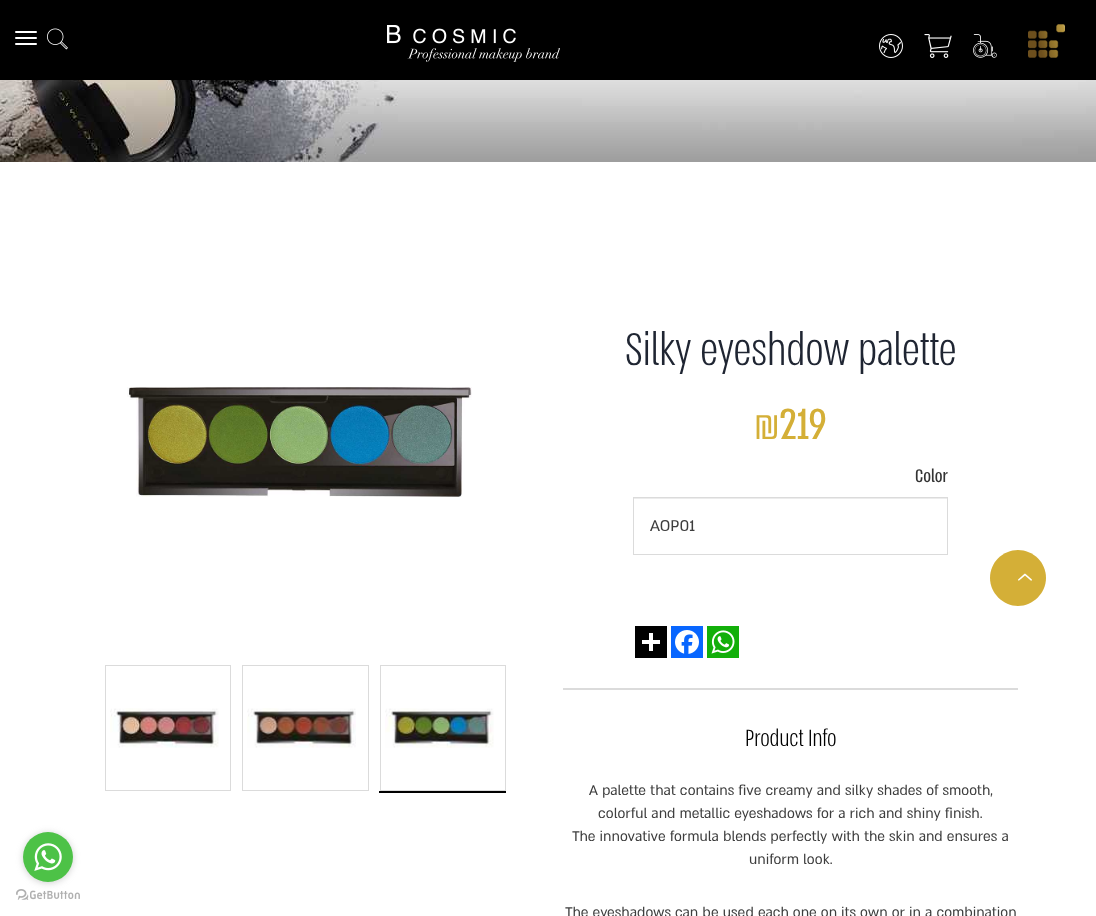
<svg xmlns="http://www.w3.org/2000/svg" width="1096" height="916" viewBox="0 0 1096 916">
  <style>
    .t1 { font: 300 52.5px 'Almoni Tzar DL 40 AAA'; fill: #1f2532; }
    .t2 { font: 50px 'Almoni Tzar DL 40 AAA'; fill: #d4af37; }
    .t3 { font: 21px 'Almoni Tzar DL 40 AAA'; fill: #333; }
    .t4 { font: 18px 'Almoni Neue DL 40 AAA'; fill: #3d3d3d; }
    .t5 { font: 300 27px 'Almoni Tzar DL 40 AAA'; fill: #000; }
    .t6 { font: 16px 'Almoni Neue DL 40 AAA'; fill: #3d3d3d; }
  </style>
  <rect width="100%" height="100%" fill="#fff"/>
  <rect x="0" y="0" width="1096" height="80" fill="#000"/>
  <rect x="15" y="31" width="22" height="2" rx="1" fill="#fff"/>
  <rect x="15" y="37" width="22" height="2" rx="1" fill="#fff"/>
  <rect x="15" y="43" width="22" height="2" rx="1" fill="#fff"/>
  <image x="47" y="28" width="21" height="22" href="images/1.png"/>
  <image x="387" y="25" width="173" height="37" href="images/2.png"/>
  <image x="879" y="34" width="24" height="24" href="images/3.png"/>
  <image x="924" y="34" width="28" height="24" href="images/4.png"/>
  <image x="973" y="34" width="24" height="24" href="images/5.png"/>
  <image x="1028" y="24" width="37" height="34" href="images/6.png"/>
  <image x="0" y="80" width="1096" height="82" href="images/7.png"/>
  <image x="127" y="387" width="345" height="110" href="images/8.png"/>
  <rect x="105.5" y="665.5" width="125" height="125" fill="none" stroke="#dbdbdb"/>
  <image x="110" y="708" width="109" height="40" href="images/9.png"/>
  <rect x="242.5" y="665.5" width="126" height="125" fill="none" stroke="#dbdbdb"/>
  <image x="247" y="708" width="109" height="40" href="images/10.png"/>
  <rect x="379" y="791" width="127" height="2" fill="#000"/>
  <rect x="380.5" y="665.5" width="125" height="125" fill="none" stroke="#dbdbdb"/>
  <image x="385" y="708" width="109" height="40" href="images/11.png"/>
  <text x="625" y="365" class="t1">Silky eyeshdow palette</text>
  <text x="754" y="439" class="t2">₪219</text>
  <text x="915" y="482" class="t3">Color</text>
  <rect x="634" y="498" width="313" height="1" fill="#ececec"/>
  <rect x="633.5" y="497.5" width="314" height="57" fill="none" stroke="#dbdbdb"/>
  <text x="650" y="531" class="t4">AOP01</text>
  <rect x="635" y="626" width="32" height="32" fill="#000"/>
  <rect x="649" y="633" width="4" height="18" fill="#fff"/>
  <rect x="642" y="640" width="18" height="4" fill="#fff"/>
  <rect x="671" y="626" width="32" height="32" fill="#0866ff"/>
  <image x="675" y="630" width="24" height="24" href="images/12.png"/>
  <rect x="707" y="626" width="32" height="32" fill="#12af0a"/>
  <image x="711" y="630" width="24" height="24" href="images/13.png"/>
  <rect x="563" y="688" width="455" height="2" fill="#dbdbdb"/>
  <text x="745" y="746" class="t5">Product Info</text>
  <text x="589" y="795" class="t6">A palette that contains five creamy and silky shades of smooth,</text>
  <text x="598" y="818" class="t6">colorful and metallic eyeshadows for a rich and shiny finish.</text>
  <text x="572" y="841" class="t6">The innovative formula blends perfectly with the skin and ensures a</text>
  <text x="749" y="864" class="t6">uniform look.</text>
  <text x="565" y="917" class="t6">The eyeshadows can be used each one on its own or in a combination</text>
  <path d="M1018 606C1003 606 990 593 990 578C990 562 1003 550 1018 550C1033 550 1046 562 1046 578C1046 593 1033 606 1018 606Z" fill="#d4af37"/>
  <image x="1018" y="573" width="14" height="8" href="images/14.png"/>
  <image x="16" y="889" width="64" height="11" href="images/16.png"/>
  <rect x="23" y="833" width="50" height="50" rx="25" fill="#88888866" filter="blur(3.5px)"/>
  <circle cx="48" cy="857" r="25" fill="#4dc247"/>
  <image x="34" y="843" width="28" height="28" href="images/15.png"/>
</svg>
